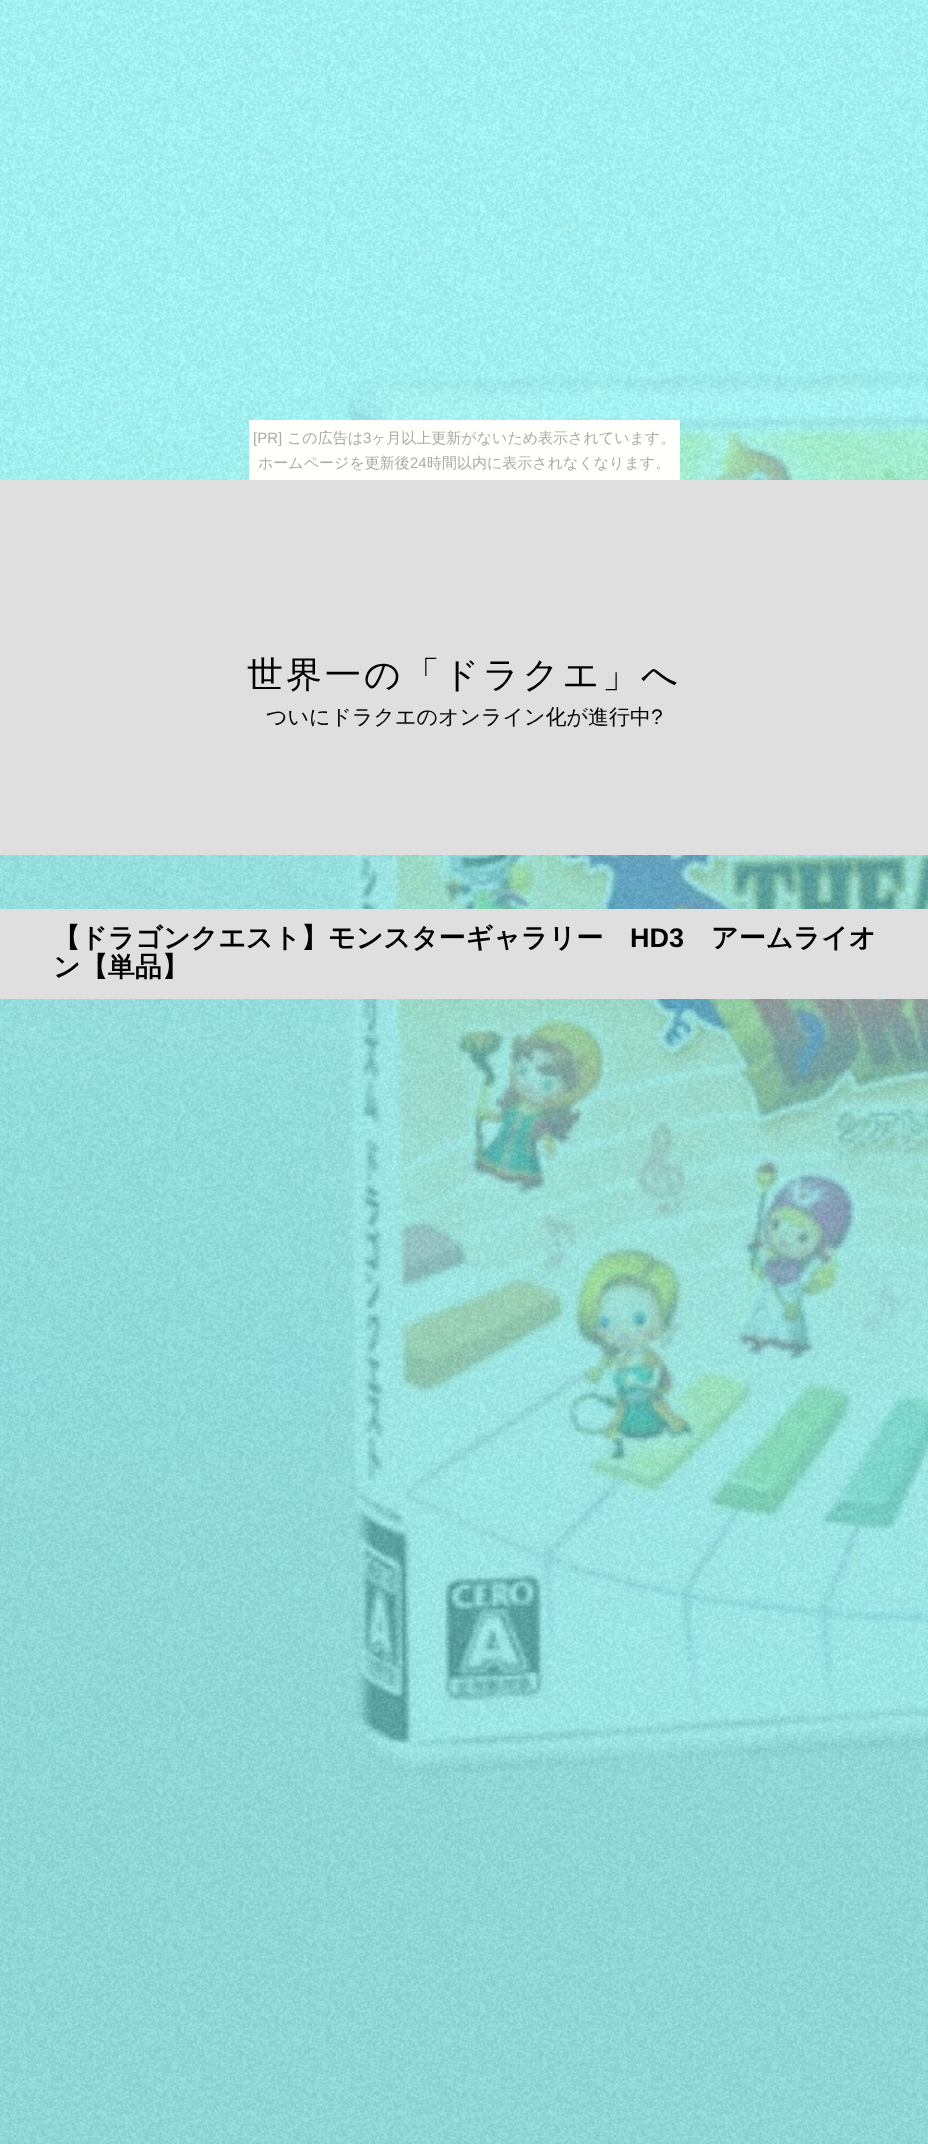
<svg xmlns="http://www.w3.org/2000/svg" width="928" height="2144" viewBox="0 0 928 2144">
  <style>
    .t1 { font: 15px Liberation Sans; fill: #aaa; }
    .t2 { font: 500 15px WenQuanYi Zen Hei; fill: #aaa; }
    .t3 { font: 500 36px WenQuanYi Zen Hei; letter-spacing: 3px; fill: #000; }
    .t4 { font: 500 21px WenQuanYi Zen Hei; fill: #000; }
    .t5 { font: 21px Liberation Sans; fill: #000; }
    .t6 { font: bold 27px WenQuanYi Zen Hei; fill: #000; }
    .t7 { font: bold 27px Liberation Sans; fill: #000; }
  </style>
  <rect width="100%" height="100%" fill="#fff"/>
  <image x="0" y="0" width="928" height="2144" href="images/1.png"/>
  <image x="0" y="0" width="928" height="2144" href="images/2.png"/>
  <rect x="249" y="420" width="431" height="60" fill="#fffffc"/>
  <text x="253" y="443" class="t1">[PR]</text>
  <text x="287" y="443" class="t2">この広告は</text>
  <text x="363" y="443" class="t1">3</text>
  <text x="371" y="443" class="t2">ヶ月以上更新がないため表示されています。</text>
  <text x="258" y="468" class="t2">ホームページを更新後</text>
  <text x="410" y="468" class="t1">24</text>
  <text x="427" y="468" class="t2">時間以内に表示されなくなります。</text>
  <rect x="0" y="480" width="928" height="375" fill="#dfdfdf"/>
  <text x="247" y="687" class="t3">世界一の「ドラクエ」へ</text>
  <text x="266" y="724" class="t4">ついにドラクエのオンライン化が進行中</text>
  <text x="651" y="724" class="t5">?</text>
  <rect x="0" y="855" width="928" height="1289" fill="#0000000d"/>
  <rect x="0" y="909" width="928" height="90" fill="#dfdfdf"/>
  <text x="53" y="947" class="t6">【ドラゴンクエスト】モンスターギャラリー</text>
  <text x="630" y="947" class="t7">HD3</text>
  <text x="711" y="947" class="t6">アームライオ</text>
  <text x="53" y="976" class="t6">ン【単品】</text>
</svg>
